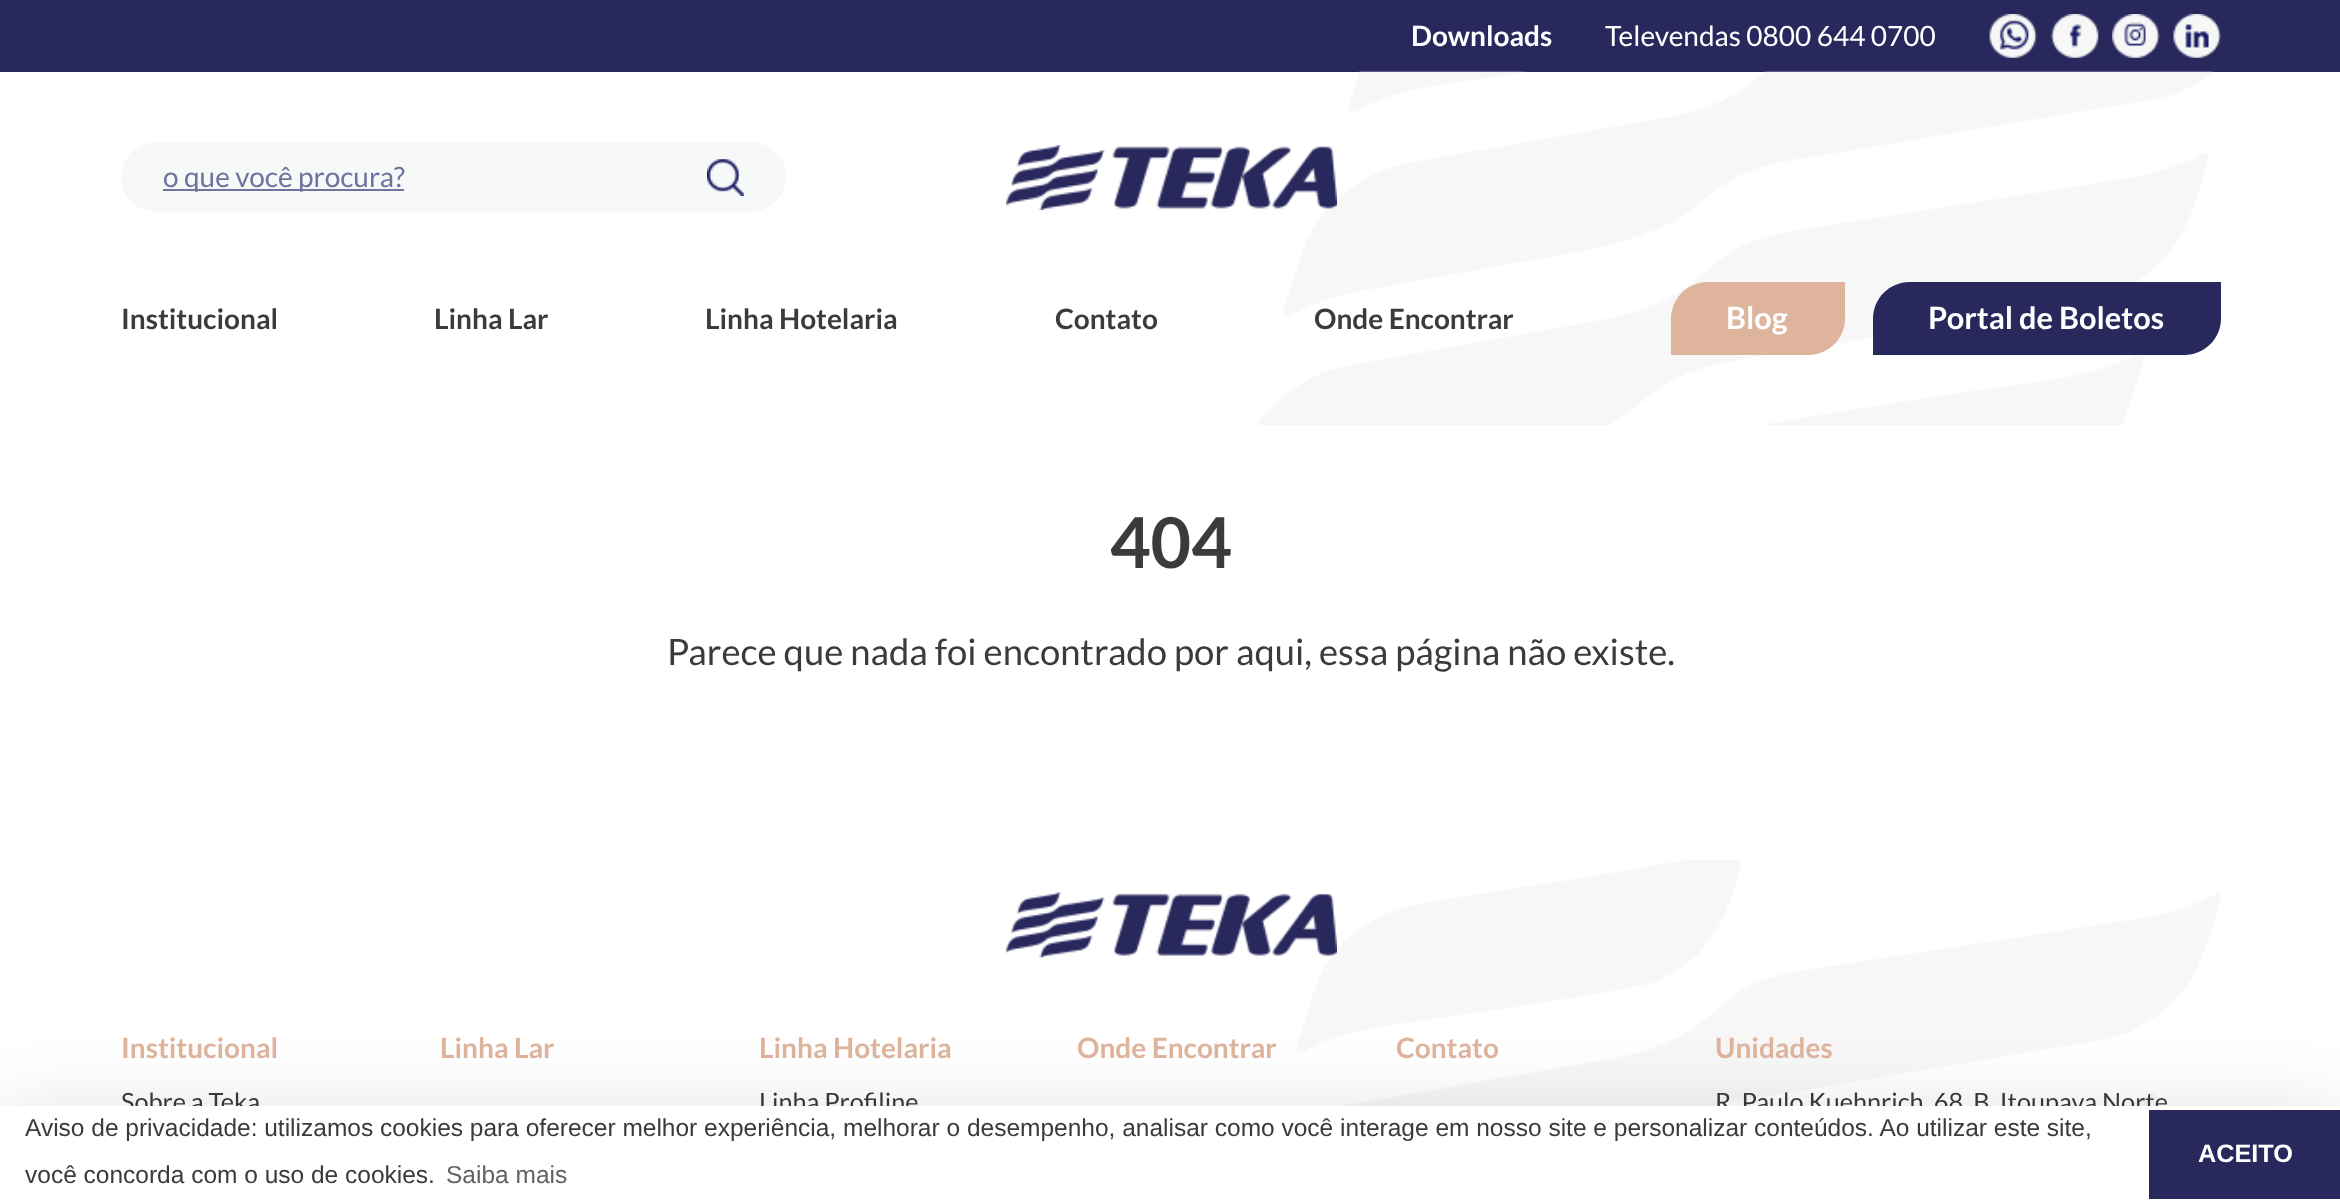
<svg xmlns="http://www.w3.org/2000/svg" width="2340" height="1200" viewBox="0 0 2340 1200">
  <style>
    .t1 { font: bold 28px Lato; fill: #fff; }
    .t2 { font: 28px Lato; fill: #fff; }
    .t3 { font: 28px Lato; fill: #70729e; }
    .t4 { font: bold 28px Lato; fill: #3b3b3a; }
    .t5 { font: bold 30.75px Lato; fill: #fff; }
    .t6 { font: bold 70px Lato; fill: #3b3b3a; }
    .t7 { font: 36.4px Lato; fill: #3b3b3a; }
    .t8 { font: bold 28px Lato; fill: #dfb49d; }
    .t9 { font: 25.25px Lato; fill: #3b3b3a; }
    .t10 { font: 24.5px Liberation Sans; fill: #3b3b3a; }
    .t11 { font: 24.5px Liberation Sans; fill: #626261; }
    .t12 { font: bold 25.25px Liberation Sans; fill: #fff; }
  </style>
  <rect width="100%" height="100%" fill="#fff"/>
  <rect x="0" y="0" width="2340" height="72" fill="#29285d"/>
  <text x="1411" y="46" class="t1">Downloads</text>
  <text x="1605" y="46" class="t2">Televendas 0800 644 0700</text>
  <image x="1989" y="14" width="48" height="44" href="images/1.png"/>
  <image x="2051" y="14" width="48" height="44" href="images/2.png"/>
  <image x="2112" y="14" width="48" height="44" href="images/3.png"/>
  <image x="2173" y="14" width="48" height="44" href="images/4.png"/>
  <rect x="121" y="142" width="665" height="70" rx="35" fill="#f7f8f8"/>
  <rect x="163" y="189" width="241" height="2" fill="#71729f"/>
  <text x="163" y="187" class="t3">o que você procura?</text>
  <image x="707" y="159" width="37" height="37" href="images/5.png"/>
  <image x="1258" y="71" width="956" height="354" href="images/7.png"/>
  <image x="1006" y="145" width="331" height="65" href="images/6.png"/>
  <text x="121" y="329" class="t4">Institucional</text>
  <text x="434" y="329" class="t4">Linha Lar</text>
  <text x="705" y="329" class="t4">Linha Hotelaria</text>
  <text x="1055" y="329" class="t4">Contato</text>
  <text x="1314" y="329" class="t4">Onde Encontrar</text>
  <path d="M1707.5 282H1845V318.5C1845 338.5 1828.5 355 1808.5 355H1671V318.5C1671 298.5 1687.5 282 1707.5 282Z" fill="#dfb49d"/>
  <text x="1726" y="329" class="t5">Blog</text>
  <path d="M1909.5 282H2221V318.5C2221 338.5 2204.5 355 2184.5 355H1873V318.5C1873 298.5 1889.5 282 1909.5 282Z" fill="#29285d"/>
  <text x="1928" y="329" class="t5">Portal de Boletos</text>
  <text x="1110" y="568" class="t6">404</text>
  <text x="667" y="665" class="t7">Parece que nada foi encontrado por aqui, essa página não existe.</text>
  <image x="1294" y="860" width="927" height="246" href="images/9.png"/>
  <image x="1006" y="892" width="331" height="66" href="images/8.png"/>
  <text x="121" y="1058" class="t8">Institucional</text>
  <text x="121" y="1111" class="t9">Sobre a Teka</text>
  <text x="440" y="1058" class="t8">Linha Lar</text>
  <text x="759" y="1058" class="t8">Linha Hotelaria</text>
  <text x="759" y="1111" class="t9">Linha Profiline</text>
  <text x="1077" y="1058" class="t8">Onde Encontrar</text>
  <text x="1396" y="1058" class="t8">Contato</text>
  <text x="1715" y="1058" class="t8">Unidades</text>
  <text x="1715" y="1111" class="t9">R. Paulo Kuehnrich, 68, B. Itoupava Norte</text>
  <rect x="0" y="1106" width="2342" height="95" fill="#0000001a" filter="blur(35px)"/>
  <rect x="0" y="1106" width="2340" height="94" fill="#fff"/>
  <text x="25" y="1136" class="t10">Aviso de privacidade: utilizamos cookies para oferecer melhor experiência, melhorar o desempenho, analisar como você interage em nosso site e personalizar conteúdos. Ao utilizar este site,</text>
  <text x="25" y="1183" class="t10">você concorda com o uso de cookies.</text>
  <text x="446" y="1183" class="t11">Saiba mais</text>
  <rect x="2149" y="1110" width="191" height="89" fill="#29285d"/>
  <text x="2198" y="1162" class="t12">ACEITO</text>
</svg>
